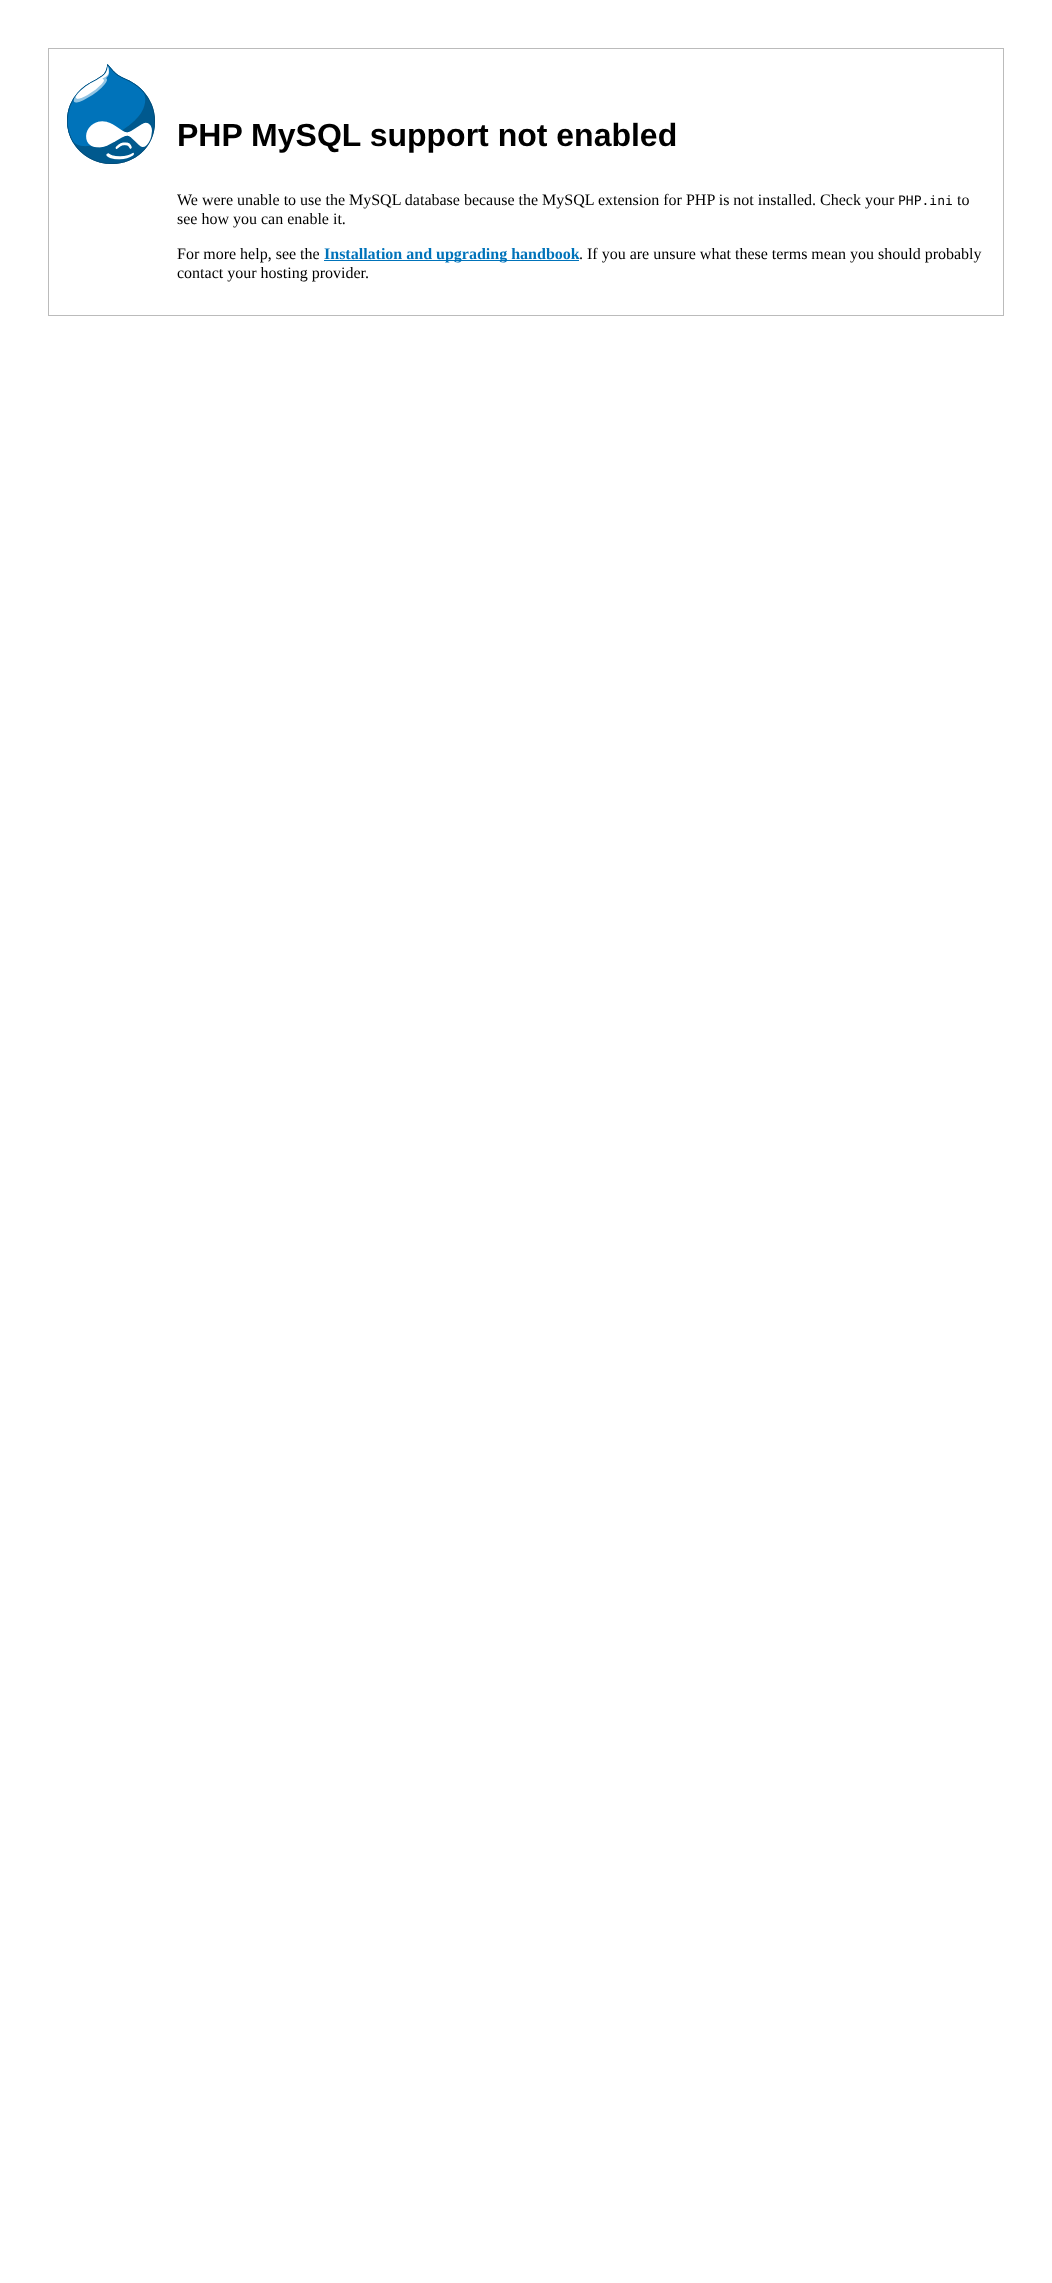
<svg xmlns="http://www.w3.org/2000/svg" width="1052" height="2283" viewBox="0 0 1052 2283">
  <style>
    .t1 { font: bold 32px Liberation Sans; fill: #000; }
    .t2 { font: 16px Liberation Serif; fill: #000; }
    .t3 { font: 13px DejaVu Sans Mono; fill: #000; }
    .t4 { font: bold 16px Liberation Serif; fill: #0073ba; }
  </style>
  <rect width="100%" height="100%" fill="#fff"/>
  <image x="67" y="64" width="88" height="100" href="images/1.png"/>
  <rect x="48.5" y="48.5" width="955" height="267" fill="none" stroke="#bbb"/>
  <text x="177" y="146" class="t1">PHP MySQL support not enabled</text>
  <text x="177" y="205" class="t2">We were unable to use the MySQL database because the MySQL extension for PHP is not installed. Check your</text>
  <text x="898" y="205" class="t3">PHP.ini</text>
  <text x="957" y="205" class="t2">to</text>
  <text x="177" y="224" class="t2">see how you can enable it.</text>
  <text x="177" y="259" class="t2">For more help, see the</text>
  <rect x="324" y="260" width="255" height="1" fill="#0073ba"/>
  <text x="324" y="259" class="t4">Installation and upgrading handbook</text>
  <text x="579" y="259" class="t2">. If you are unsure what these terms mean you should probably</text>
  <text x="177" y="278" class="t2">contact your hosting provider.</text>
</svg>
